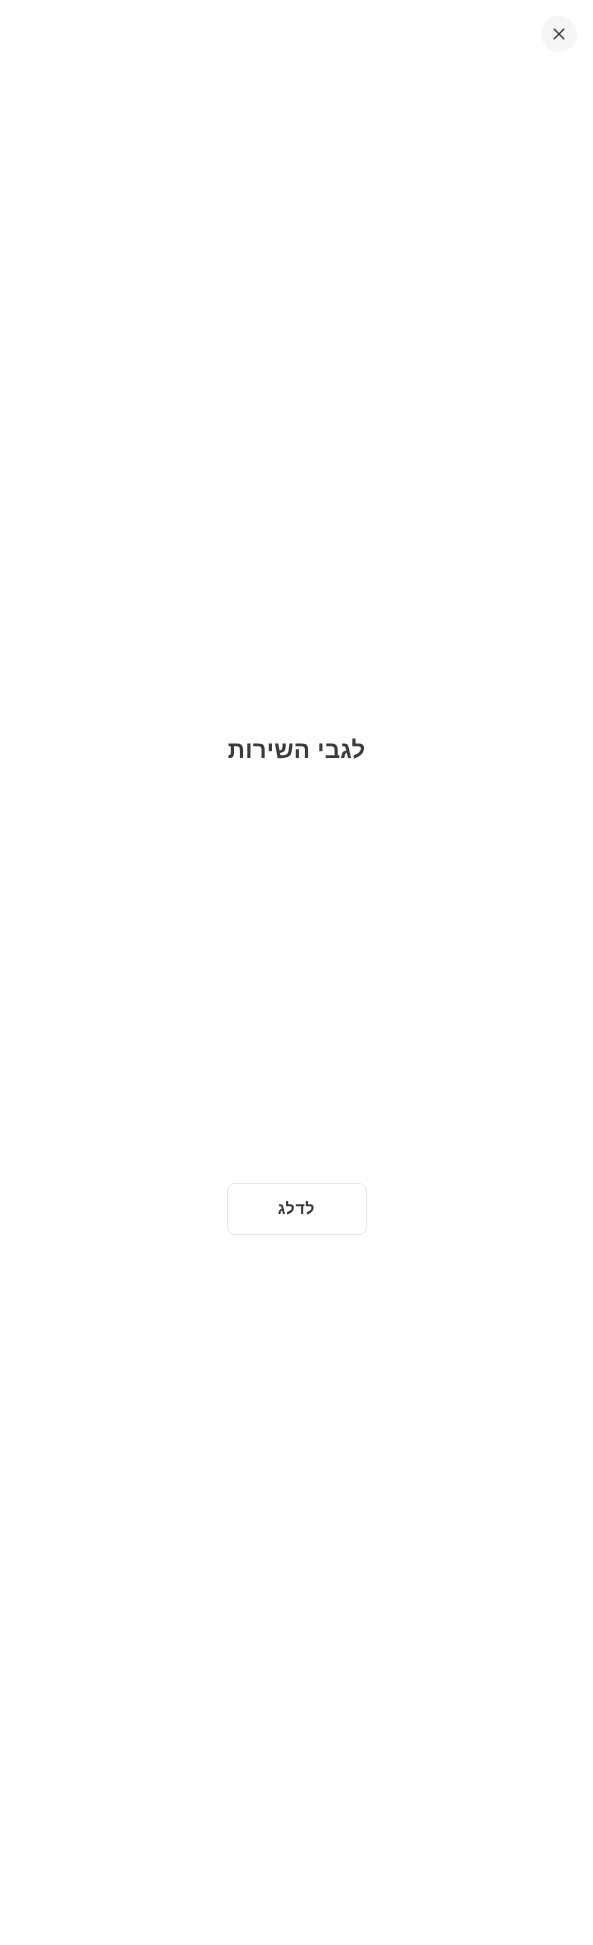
<svg xmlns="http://www.w3.org/2000/svg" width="593" height="1945" viewBox="0 0 593 1945">
  <style>
    .t1 { font: bold 24px Arimo; letter-spacing: 0.25px; direction: rtl; fill: #3b3b3b; }
    .t2 { font: bold 16px Arimo; letter-spacing: 0.5px; direction: rtl; fill: #3b3b3b; }
  </style>
  <rect width="100%" height="100%" fill="#fff"/>
  <circle cx="559" cy="34" r="18" fill="#f6f6f6"/>
  <image x="553" y="28" width="12" height="12" href="images/1.png"/>
  <text x="366" y="758" class="t1">לגבי השירות</text>
  <rect x="227.5" y="1183.5" width="139" height="51" rx="7.5" fill="none" stroke="#e5e5e5"/>
  <text x="315" y="1214" class="t2">לדלג</text>
</svg>
